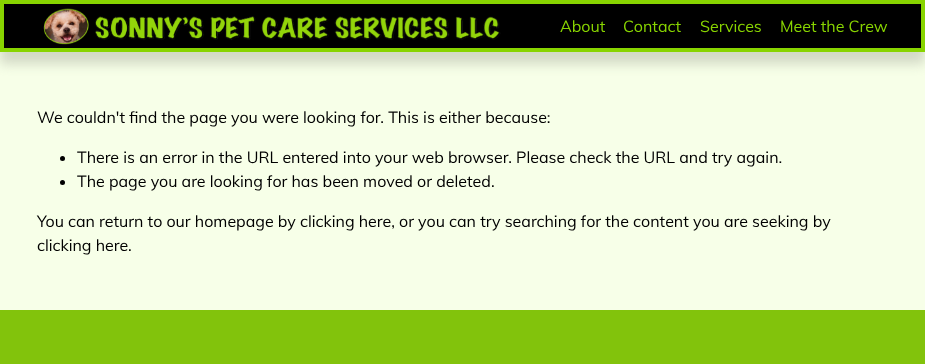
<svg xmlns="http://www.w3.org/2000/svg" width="925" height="364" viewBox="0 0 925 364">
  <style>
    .t1 { font: 16px Muli; fill: #88d400; }
    .t2 { font: 16px Muli; fill: #000; }
  </style>
  <defs>
    <clipPath id="clip1"><rect x="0" y="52" width="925" height="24"/></clipPath>
  </defs>
  <rect width="100%" height="100%" fill="#f7ffe8"/>
  <rect x="4" y="4" width="917" height="44" fill="#000"/>
  <g clip-path="url(#clip1)">
    <rect x="0" y="12" width="925" height="52" fill="#d2d9c5" filter="blur(6px)"/>
  </g>
  <rect x="2" y="2" width="921" height="48" fill="none" stroke="#88d400" stroke-width="4"/>
  <image x="43" y="8" width="458" height="37" href="images/1.png"/>
  <text x="560" y="32" class="t1">About</text>
  <text x="623" y="32" class="t1">Contact</text>
  <text x="700" y="32" class="t1">Services</text>
  <text x="780" y="32" class="t1">Meet the Crew</text>
  <text x="37" y="123" class="t2">We couldn't find the page you were looking for. This is either because:</text>
  <circle cx="62.5" cy="158.5" r="2.5" fill="#000"/>
  <text x="77" y="163" class="t2">There is an error in the URL entered into your web browser. Please check the URL and try again.</text>
  <circle cx="62.5" cy="182.5" r="2.5" fill="#000"/>
  <text x="77" y="187" class="t2">The page you are looking for has been moved or deleted.</text>
  <text x="37" y="227" class="t2">You can return to our homepage by clicking here, or you can try searching for the content you are seeking by</text>
  <text x="37" y="251" class="t2">clicking here.</text>
  <rect x="0" y="310" width="925" height="54" fill="#82c30c"/>
</svg>
